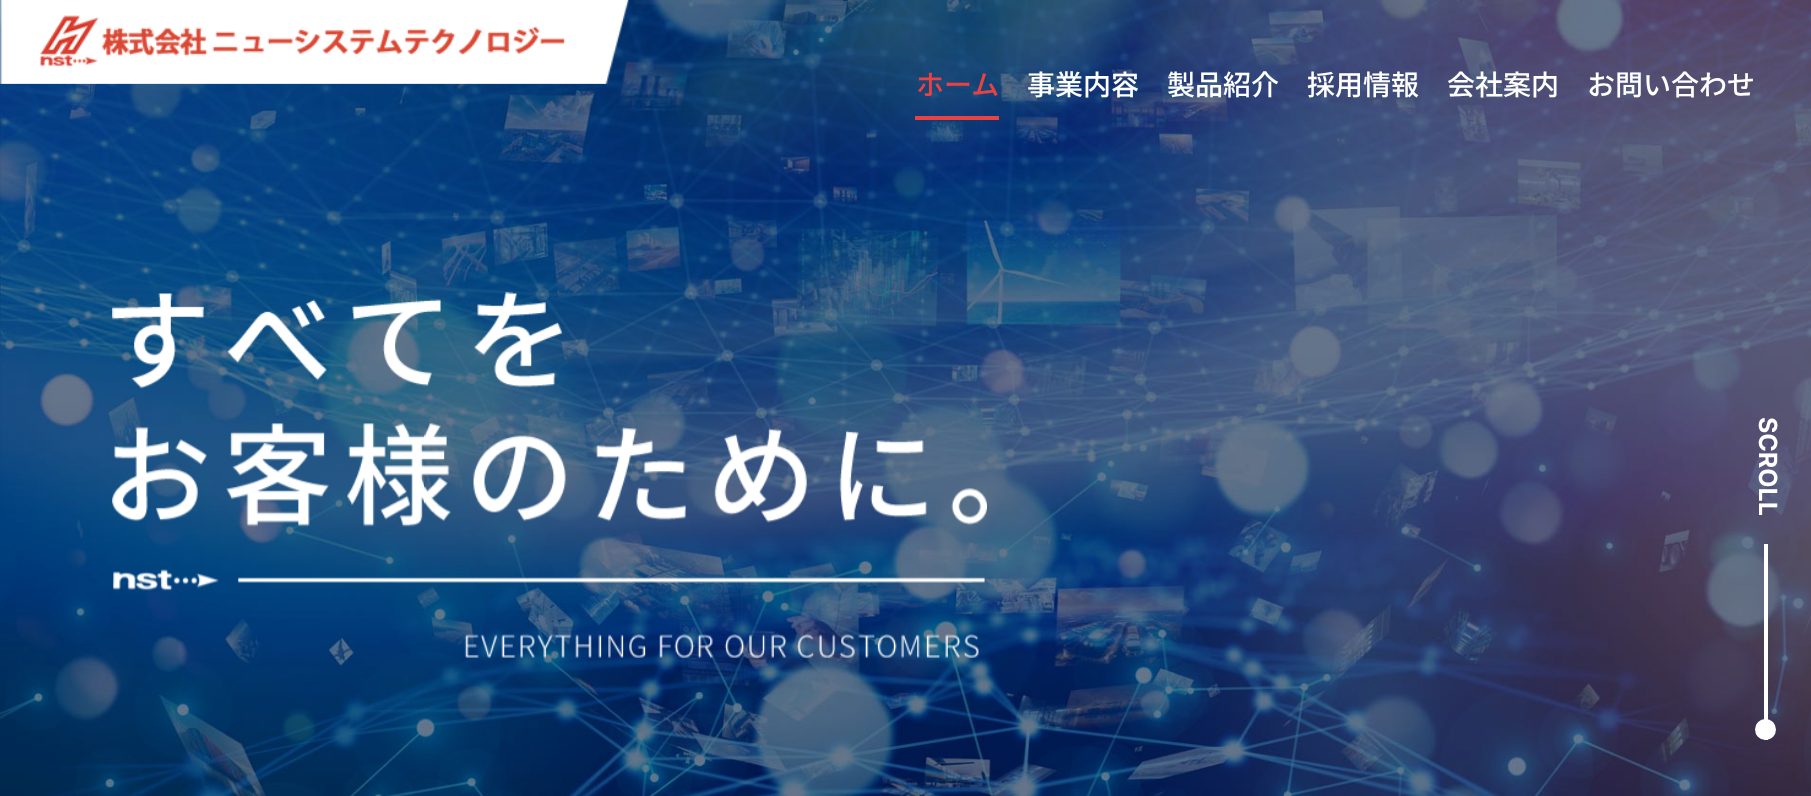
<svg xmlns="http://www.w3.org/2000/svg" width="1811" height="796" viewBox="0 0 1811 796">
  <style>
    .t1 { font: 500 28px Noto Sans JP; fill: #e84242; }
    .t2 { font: 500 28px Noto Sans JP; fill: #fff; }
    .t3 { font: bold 25px Inter; fill: #fff; }
  </style>
  <rect width="100%" height="100%" fill="#000"/>
  <image x="0" y="0" width="1811" height="796" href="images/2.png"/>
  <image x="0" y="0" width="629" height="84" href="images/1.png"/>
  <text x="916" y="95" class="t1">ホーム</text>
  <rect x="915" y="116" width="84" height="4" fill="#e84242"/>
  <text x="1027" y="95" class="t2">事業内容</text>
  <text x="1167" y="95" class="t2">製品紹介</text>
  <text x="1307" y="95" class="t2">採用情報</text>
  <text x="1447" y="95" class="t2">会社案内</text>
  <text x="1587" y="95" class="t2">お問い合わせ</text>
  <image x="112" y="292" width="875" height="366" href="images/3.png"/>
  <text x="1759" y="417" transform="rotate(90 1759 417)" class="t3">SCROLL</text>
  <rect x="1764" y="544" width="4" height="196" fill="#fff"/>
  <circle cx="1765.5" cy="729.5" r="10.5" fill="#fff"/>
</svg>
